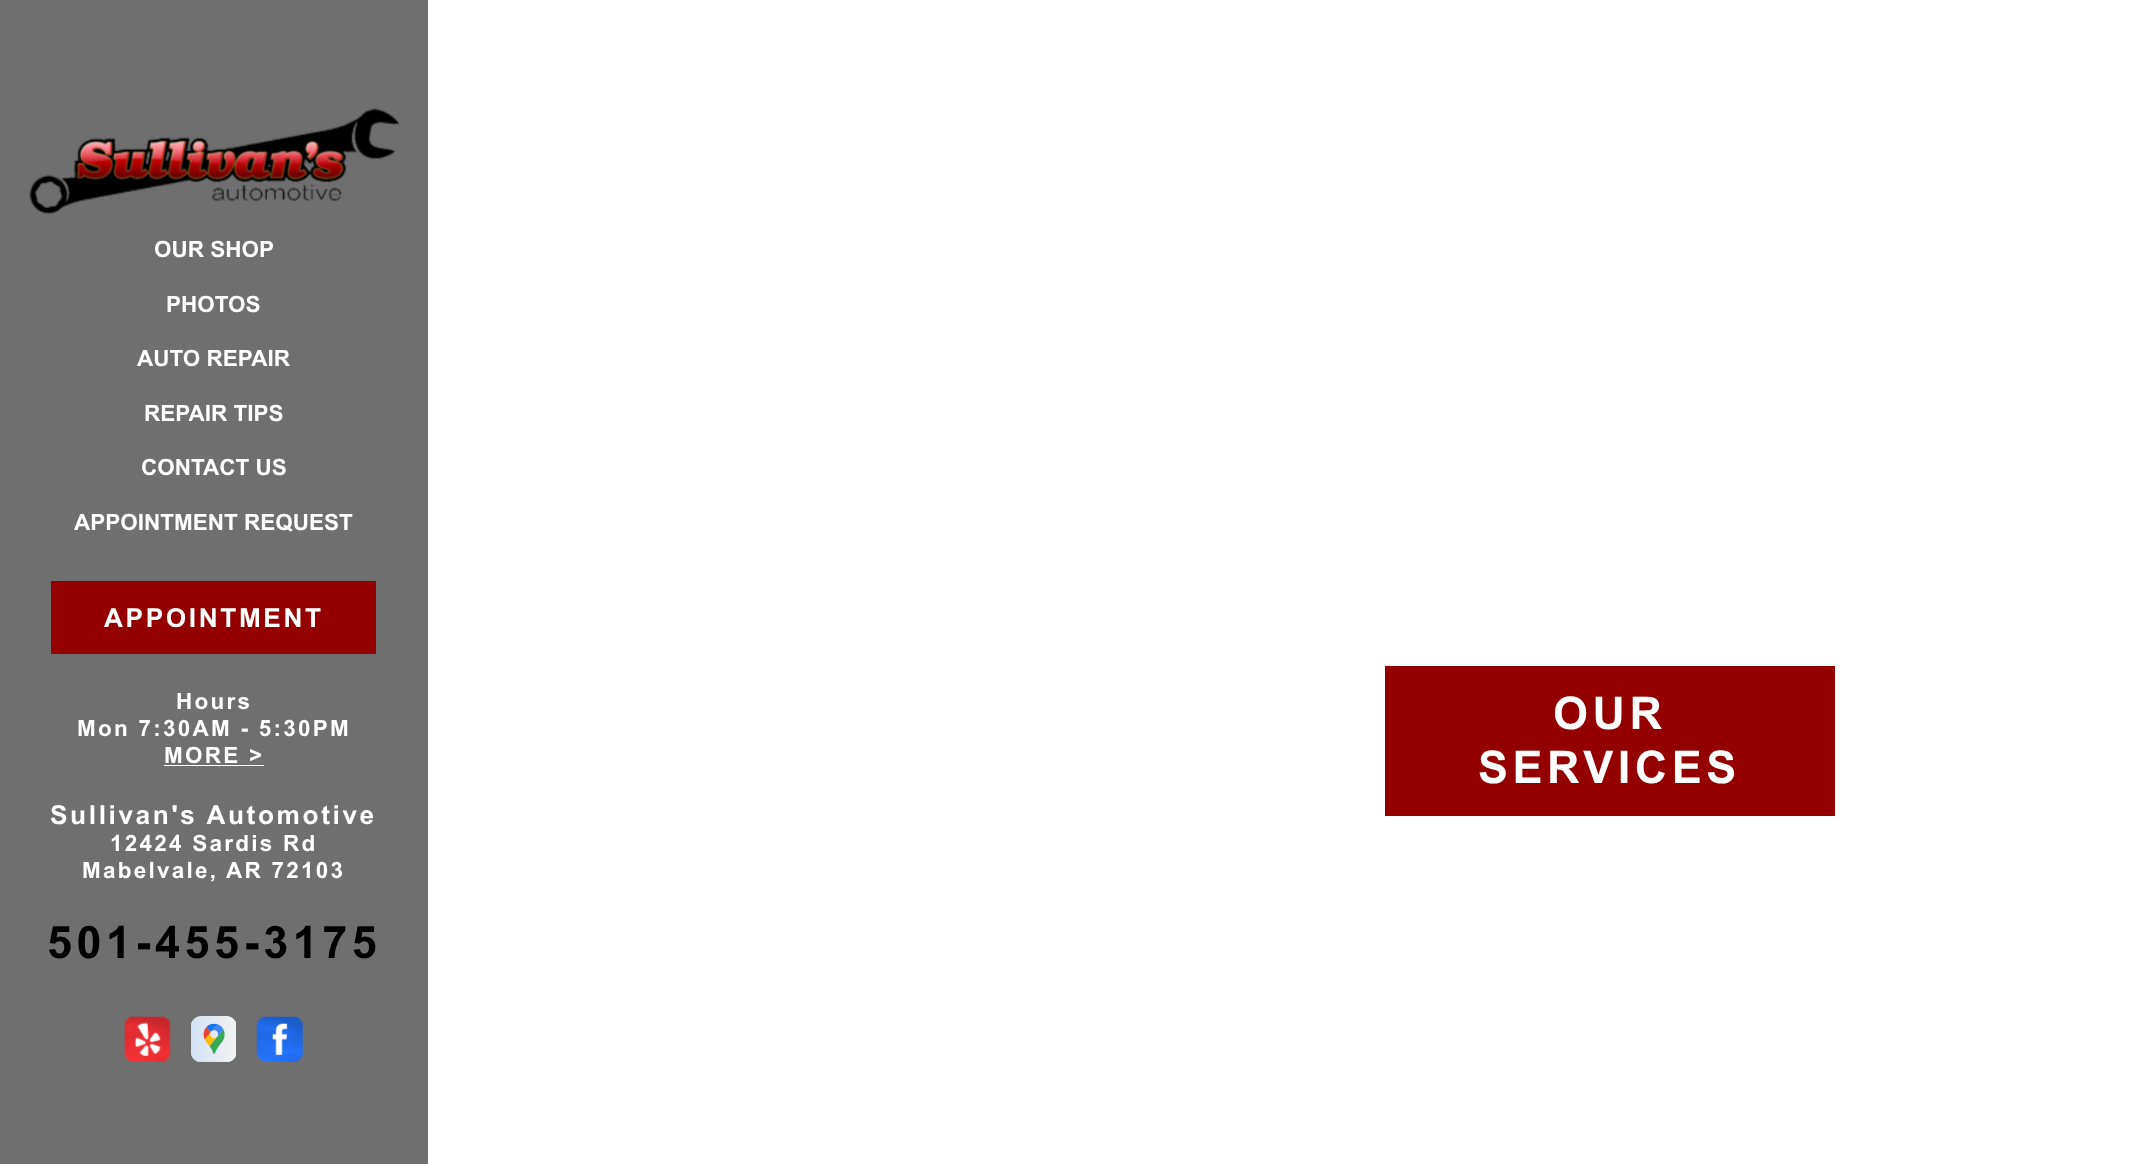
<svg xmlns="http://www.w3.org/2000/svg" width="2136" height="1164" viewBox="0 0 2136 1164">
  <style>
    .t1 { font: bold 22.5px Arial; fill: #fff; }
    .t2 { font: bold 26.25px Arial; letter-spacing: 2.6px; fill: #fff; }
    .t3 { font: bold 22.5px Arial; letter-spacing: 2.25px; fill: #fff; }
    .t4 { font: bold 45px Arial; letter-spacing: 4.5px; fill: #000; }
    .t5 { font: bold 45px Arial; letter-spacing: 4.5px; fill: #fff; }
  </style>
  <rect width="100%" height="100%" fill="#fff"/>
  <rect x="0" y="0" width="428" height="1164" fill="#6f6f6f"/>
  <image x="29" y="108" width="370" height="107" href="images/1.png"/>
  <text x="154" y="257" class="t1">OUR SHOP</text>
  <text x="166" y="312" class="t1">PHOTOS</text>
  <text x="137" y="366" class="t1">AUTO REPAIR</text>
  <text x="144" y="421" class="t1">REPAIR TIPS</text>
  <text x="141" y="475" class="t1">CONTACT US</text>
  <text x="74" y="530" class="t1">APPOINTMENT REQUEST</text>
  <rect x="51" y="581" width="325" height="73" fill="#940000"/>
  <text x="104" y="627" class="t2">APPOINTMENT</text>
  <text x="176" y="709" class="t3">Hours</text>
  <text x="77" y="736" class="t3">Mon 7:30AM - 5:30PM</text>
  <text x="164" y="763" class="t3">MORE &gt;</text>
  <rect x="164" y="765" width="100" height="1" fill="#fff"/>
  <text x="50" y="824" class="t2">Sullivan's Automotive</text>
  <text x="110" y="851" class="t3">12424 Sardis Rd</text>
  <text x="82" y="878" class="t3">Mabelvale, AR 72103</text>
  <text x="47" y="958" class="t4">501-455-3175</text>
  <image x="124" y="1016" width="47" height="46" href="images/2.png"/>
  <image x="191" y="1016" width="45" height="46" href="images/3.png"/>
  <image x="256" y="1016" width="47" height="46" href="images/4.png"/>
  <rect x="1385" y="666" width="450" height="150" fill="#940000"/>
  <text x="1553" y="729" class="t5">OUR</text>
  <text x="1478" y="783" class="t5">SERVICES</text>
</svg>
